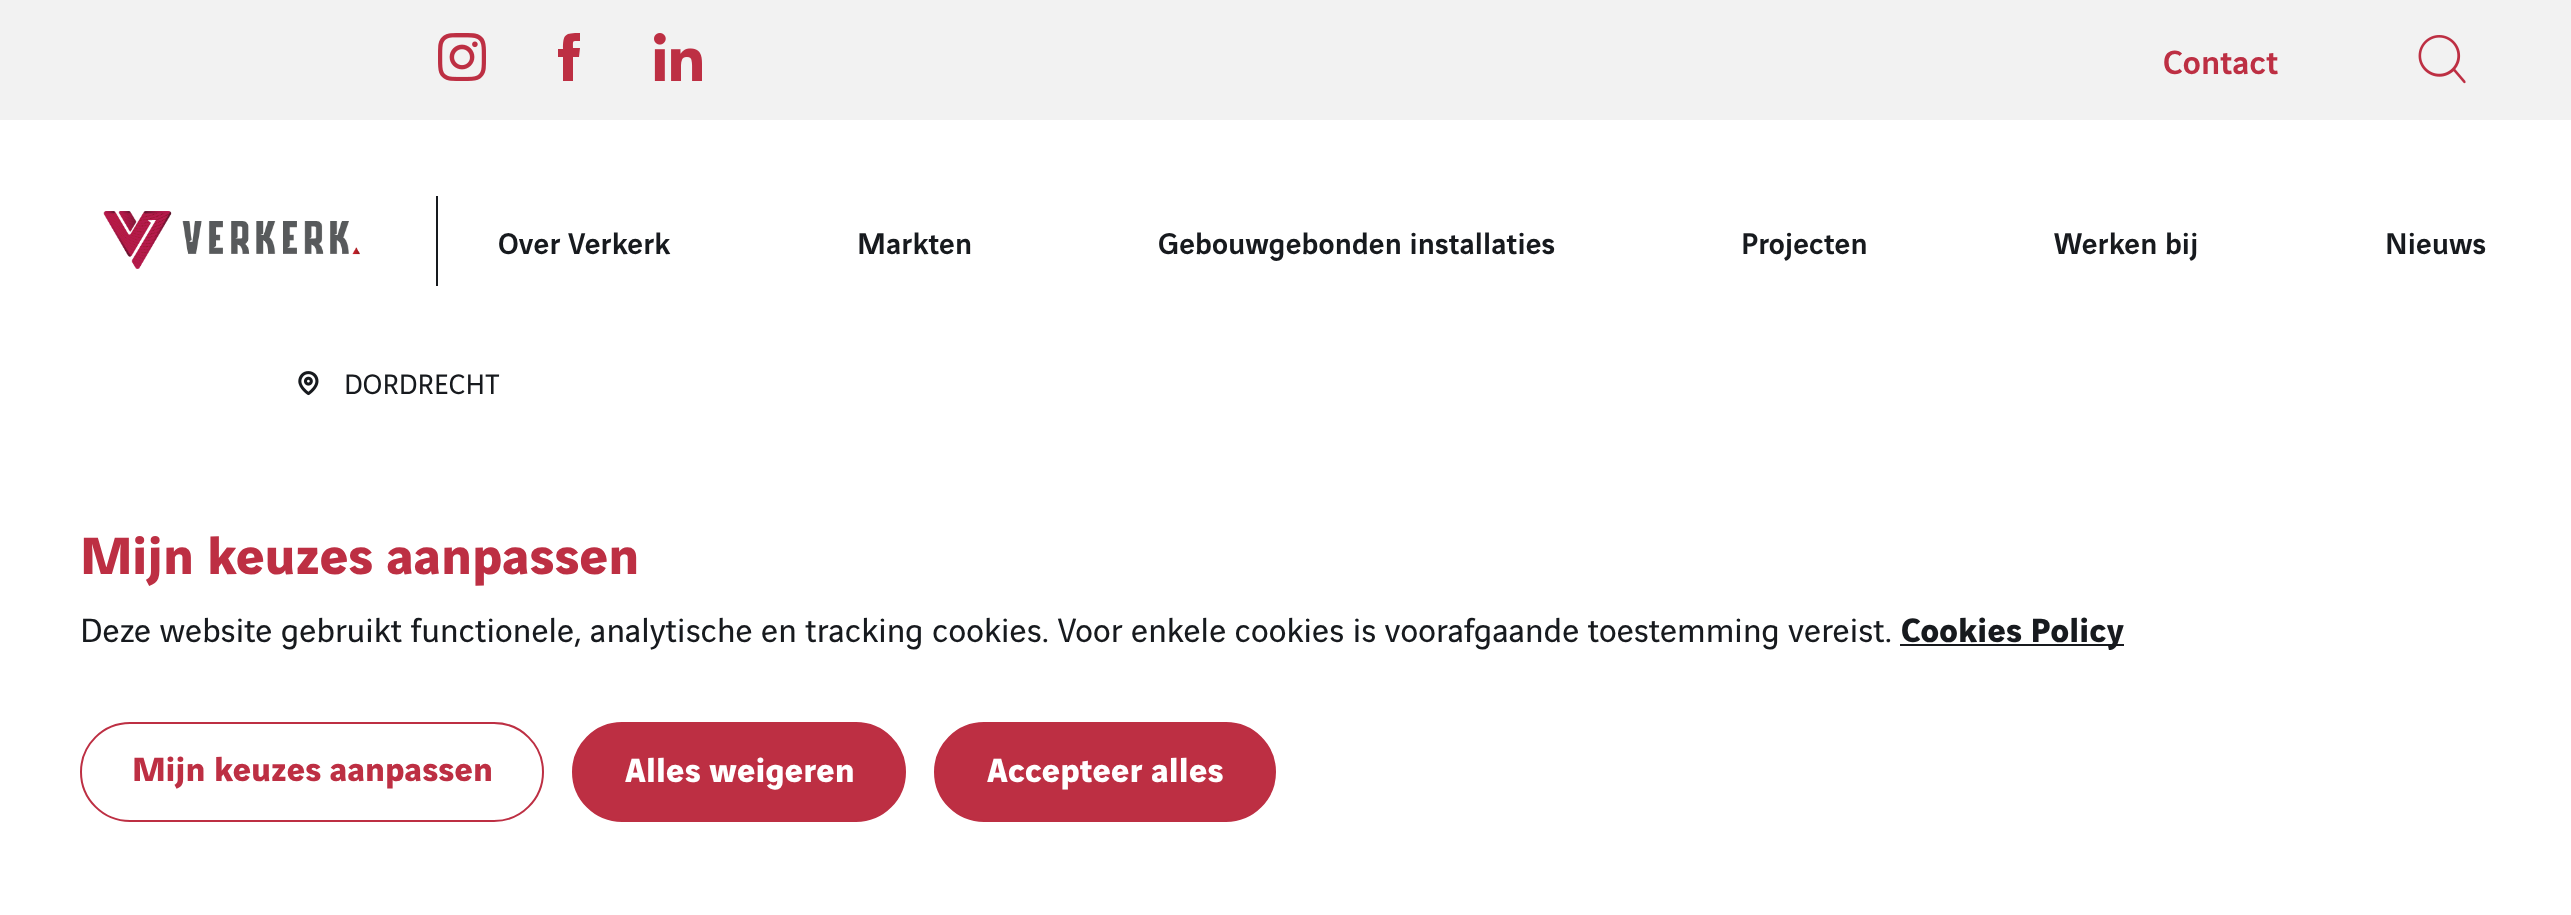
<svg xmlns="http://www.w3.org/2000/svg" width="2571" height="915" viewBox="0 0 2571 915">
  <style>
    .t1 { font: 500 36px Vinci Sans; letter-spacing: 0.2px; fill: #bd2f43; }
    .t2 { font: 500 32px Vinci Sans; letter-spacing: 0.2px; fill: #171a1e; }
    .t3 { font: 30px Vinci Sans; letter-spacing: 0.2px; fill: #171a1e; }
    .t4 { font: bold 56px Vinci Sans; letter-spacing: 0.2px; fill: #bd2f43; }
    .t5 { font: 36px Vinci Sans; letter-spacing: 0.2px; fill: #171a1e; }
    .t6 { font: bold 36px Vinci Sans; letter-spacing: 0.2px; fill: #171a1e; }
    .t7 { font: bold 36px Vinci Sans; letter-spacing: 0.2px; fill: #bd2f43; }
    .t8 { font: bold 36px Vinci Sans; letter-spacing: 0.2px; fill: #fff; }
  </style>
  <rect width="100%" height="100%" fill="#fff"/>
  <rect x="0" y="0" width="2571" height="120" fill="#f2f2f2"/>
  <image x="438" y="33" width="48" height="48" href="images/1.png"/>
  <path d="M580 48H573C573 40 572 41 580 41V33C565 33 563 34 563 49H558V57H563V81H573V57H579Z" fill="#bd2f43"/>
  <image x="654" y="33" width="48" height="48" href="images/2.png"/>
  <text x="2163" y="74" class="t1">Contact</text>
  <image x="2418" y="35" width="48" height="49" href="images/3.png"/>
  <image x="103" y="211" width="257" height="58" href="images/4.png"/>
  <rect x="436" y="196" width="2" height="90" fill="#171a1e"/>
  <text x="498" y="254" class="t2">Over Verkerk</text>
  <text x="857" y="254" class="t2">Markten</text>
  <text x="1158" y="254" class="t2">Gebouwgebonden installaties</text>
  <text x="1741" y="254" class="t2">Projecten</text>
  <text x="2054" y="254" class="t2">Werken bij</text>
  <text x="2385" y="254" class="t2">Nieuws</text>
  <image x="298" y="371" width="21" height="25" href="images/5.png"/>
  <text x="344" y="394" class="t3">DORDRECHT</text>
  <text x="80" y="574" class="t4">Mijn keuzes aanpassen</text>
  <text x="80" y="642" class="t5">Deze website gebruikt functionele, analytische en tracking cookies. Voor enkele cookies is voorafgaande toestemming vereist.</text>
  <rect x="1900" y="644" width="224" height="2" fill="#171a1e"/>
  <text x="1901" y="642" class="t6">Cookies Policy</text>
  <rect x="81" y="723" width="462" height="98" rx="49" fill="none" stroke="#bd2f43" stroke-width="2"/>
  <text x="132" y="781" class="t7">Mijn keuzes aanpassen</text>
  <rect x="573" y="723" width="332" height="98" rx="49" fill="#bd2f43" stroke="#bd2f43" stroke-width="2"/>
  <text x="625" y="782" class="t8">Alles weigeren</text>
  <rect x="935" y="723" width="340" height="98" rx="49" fill="#bd2f43" stroke="#bd2f43" stroke-width="2"/>
  <text x="987" y="782" class="t8">Accepteer alles</text>
</svg>
